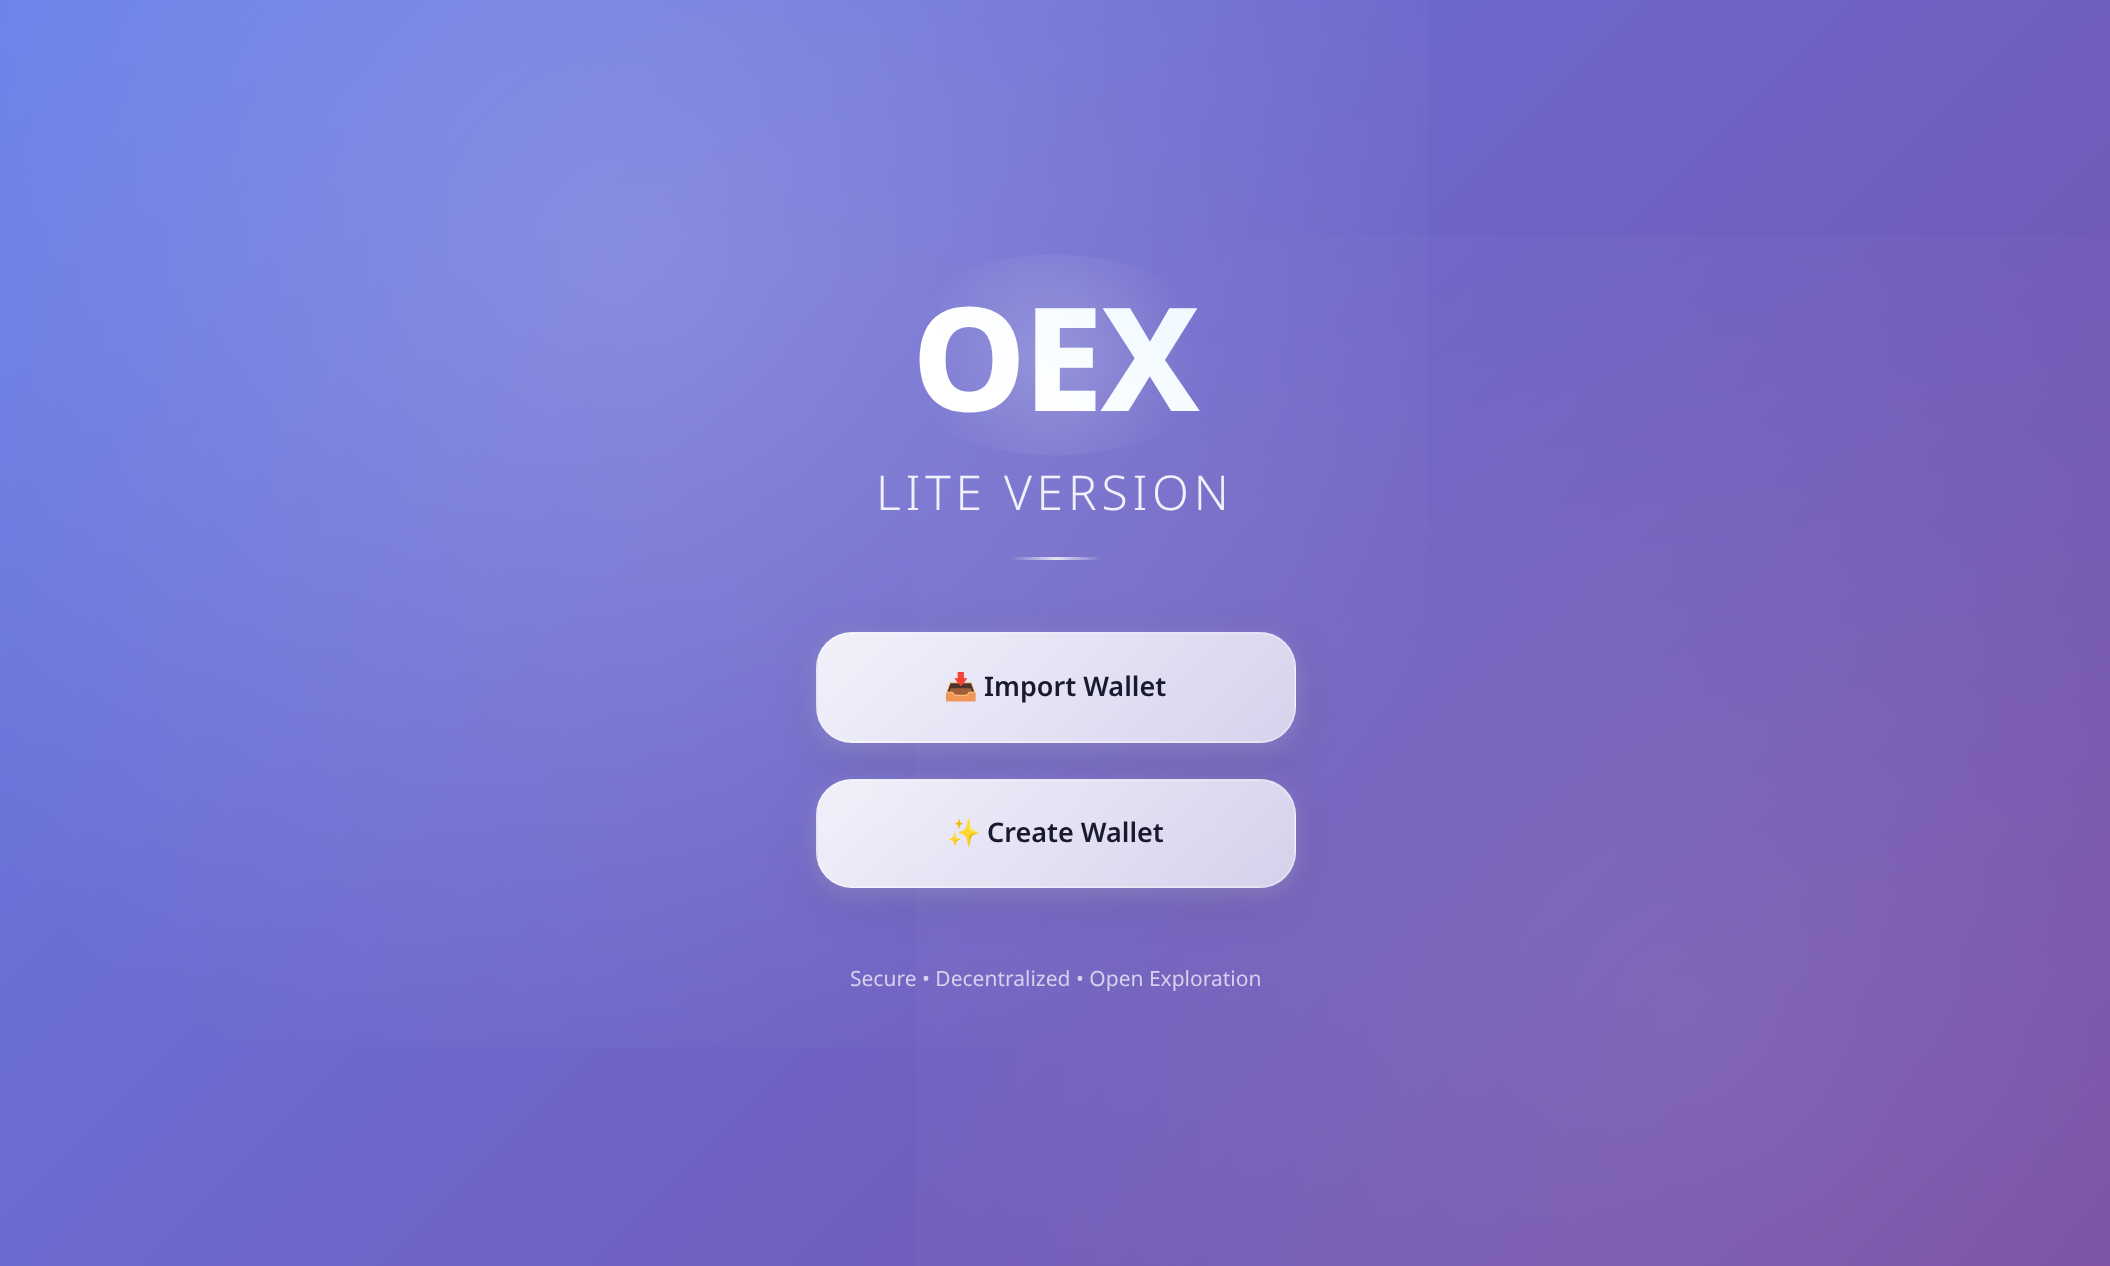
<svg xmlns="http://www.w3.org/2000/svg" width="2110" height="1266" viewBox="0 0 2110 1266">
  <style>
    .t1 { font: 800 144px Noto Sans; letter-spacing: -3px; fill: url(#g1); }
    .t2 { font: 300 48px Noto Sans; letter-spacing: 4.75px; fill: #f2f1fa; }
    .t3 { font: bold 27px Noto Color Emoji; fill: #1a1a2e; }
    .t4 { font: 600 27px Noto Sans; fill: #1a1a2e; }
    .t5 { font: 21px Noto Sans; fill: #d6d1ed; }
  </style>
  <defs>
    <linearGradient id="g1" gradientUnits="userSpaceOnUse" x1="942" y1="468" x2="1169" y2="242"><stop offset="0.3" stop-color="#fff"/><stop offset="0.9" stop-color="#f0f9ff"/></linearGradient>
    <linearGradient id="g2" gradientUnits="userSpaceOnUse" x1="211" y1="-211" x2="1899" y2="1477"><stop offset="0" stop-color="#667eea"/><stop offset="1" stop-color="#764ba2"/></linearGradient>
    <radialGradient id="g3" gradientUnits="userSpaceOnUse" cx="1688" cy="1013" r="1969"><stop offset="0" stop-color="#fff" stop-opacity="0.1"/><stop offset="0.5" stop-color="#fff" stop-opacity="0"/></radialGradient>
    <radialGradient id="g4" gradientUnits="userSpaceOnUse" cx="633" cy="253" r="1791"><stop offset="0" stop-color="#fff" stop-opacity="0.2"/><stop offset="0.5" stop-color="#fff" stop-opacity="0"/></radialGradient>
    <radialGradient id="g5" gradientUnits="userSpaceOnUse" cx="1056" cy="355" r="198"><stop offset="0" stop-color="#fff" stop-opacity="0.2"/><stop offset="0.7" stop-color="#fff" stop-opacity="0"/></radialGradient>
    <linearGradient id="g6" gradientUnits="userSpaceOnUse" x1="1011" y1="558" x2="1101" y2="558"><stop offset="0" stop-color="#fff" stop-opacity="0"/><stop offset="0.5" stop-color="#fff" stop-opacity="0.8"/><stop offset="1" stop-color="#fff" stop-opacity="0"/></linearGradient>
    <clipPath id="clip1"><path d="M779 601H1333V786H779ZM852 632H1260C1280 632 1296 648 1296 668V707C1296 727 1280 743 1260 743H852C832 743 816 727 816 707V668C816 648 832 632 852 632Z" clip-rule="evenodd"/></clipPath>
    <clipPath id="clip2"><path d="M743 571H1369V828H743ZM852 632H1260C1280 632 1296 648 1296 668V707C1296 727 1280 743 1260 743H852C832 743 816 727 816 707V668C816 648 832 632 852 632Z" clip-rule="evenodd"/></clipPath>
    <clipPath id="clip3"><rect x="816" y="632" width="480" height="111" rx="36"/></clipPath>
    <linearGradient id="g7" gradientUnits="userSpaceOnUse" x1="910" y1="433" x2="1202" y2="725"><stop offset="0" stop-color="#fff" stop-opacity="0.9"/><stop offset="1" stop-color="#fff" stop-opacity="0.7"/></linearGradient>
    <linearGradient id="g8" gradientUnits="userSpaceOnUse" x1="433" y1="541" x2="725" y2="833"><stop offset="0" stop-color="#fff" stop-opacity="0.9"/><stop offset="1" stop-color="#fff" stop-opacity="0.7"/></linearGradient>
    <linearGradient id="g9" gradientUnits="userSpaceOnUse" x1="910" y1="541" x2="1202" y2="833"><stop offset="0" stop-color="#fff" stop-opacity="0.9"/><stop offset="1" stop-color="#fff" stop-opacity="0.7"/></linearGradient>
    <linearGradient id="g10" gradientUnits="userSpaceOnUse" x1="1387" y1="541" x2="1679" y2="833"><stop offset="0" stop-color="#fff" stop-opacity="0.9"/><stop offset="1" stop-color="#fff" stop-opacity="0.7"/></linearGradient>
    <linearGradient id="g11" gradientUnits="userSpaceOnUse" x1="910" y1="649" x2="1202" y2="941"><stop offset="0" stop-color="#fff" stop-opacity="0.9"/><stop offset="1" stop-color="#fff" stop-opacity="0.7"/></linearGradient>
    <clipPath id="clip4"><path d="M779 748H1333V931H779ZM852 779H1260C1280 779 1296 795 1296 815V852C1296 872 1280 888 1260 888H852C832 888 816 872 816 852V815C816 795 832 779 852 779Z" clip-rule="evenodd"/></clipPath>
    <clipPath id="clip5"><path d="M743 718H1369V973H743ZM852 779H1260C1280 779 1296 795 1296 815V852C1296 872 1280 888 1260 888H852C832 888 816 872 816 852V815C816 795 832 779 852 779Z" clip-rule="evenodd"/></clipPath>
    <clipPath id="clip6"><rect x="816" y="779" width="480" height="109" rx="36"/></clipPath>
    <linearGradient id="g12" gradientUnits="userSpaceOnUse" x1="910" y1="581" x2="1202" y2="873"><stop offset="0" stop-color="#fff" stop-opacity="0.9"/><stop offset="1" stop-color="#fff" stop-opacity="0.7"/></linearGradient>
    <linearGradient id="g13" gradientUnits="userSpaceOnUse" x1="433" y1="687" x2="725" y2="979"><stop offset="0" stop-color="#fff" stop-opacity="0.9"/><stop offset="1" stop-color="#fff" stop-opacity="0.7"/></linearGradient>
    <linearGradient id="g14" gradientUnits="userSpaceOnUse" x1="910" y1="687" x2="1202" y2="979"><stop offset="0" stop-color="#fff" stop-opacity="0.9"/><stop offset="1" stop-color="#fff" stop-opacity="0.7"/></linearGradient>
    <linearGradient id="g15" gradientUnits="userSpaceOnUse" x1="1387" y1="687" x2="1679" y2="979"><stop offset="0" stop-color="#fff" stop-opacity="0.9"/><stop offset="1" stop-color="#fff" stop-opacity="0.7"/></linearGradient>
    <linearGradient id="g16" gradientUnits="userSpaceOnUse" x1="910" y1="794" x2="1202" y2="1086"><stop offset="0" stop-color="#fff" stop-opacity="0.9"/><stop offset="1" stop-color="#fff" stop-opacity="0.7"/></linearGradient>
  </defs>
  <rect width="100%" height="100%" fill="#fff"/>
  <rect x="0" y="0" width="2110" height="1266" fill="url(#g2)"/>
  <rect x="915" y="237" width="1195" height="1029" fill="url(#g3)"/>
  <rect x="0" y="0" width="1428" height="1047" fill="url(#g4)"/>
  <ellipse cx="1055.5" cy="355" rx="171" ry="100.5" fill="url(#g5)"/>
  <text x="912" y="411" class="t1">OEX</text>
  <text x="876" y="510" class="t2">LITE VERSION</text>
  <rect x="1011" y="557" width="90" height="3" fill="url(#g6)"/>
  <g clip-path="url(#clip1)">
    <rect x="816" y="638" width="480" height="111" rx="36" fill="#ffffff33" filter="blur(12px)"/>
  </g>
  <g clip-path="url(#clip2)">
    <rect x="816" y="644" width="480" height="111" rx="36" fill="#0000001a" filter="blur(24px)"/>
  </g>
  <g clip-path="url(#clip3)">
    <rect x="844" y="632" width="424" height="1" fill="url(#g7)"/>
    <rect x="816" y="656" width="2" height="63" fill="url(#g8)"/>
    <rect x="818" y="633" width="477" height="108" fill="url(#g9)"/>
    <rect x="1295" y="660" width="1" height="55" fill="url(#g10)"/>
    <rect x="840" y="741" width="432" height="2" fill="url(#g11)"/>
  </g>
  <rect x="817" y="633" width="478" height="109" rx="35" fill="none" stroke="#ffffff4d" stroke-width="2"/>
  <text x="944" y="696" class="t3">📥</text>
  <text x="984" y="696" class="t4">Import Wallet</text>
  <g clip-path="url(#clip4)">
    <rect x="816" y="785" width="480" height="109" rx="36" fill="#ffffff33" filter="blur(12px)"/>
  </g>
  <g clip-path="url(#clip5)">
    <rect x="816" y="791" width="480" height="109" rx="36" fill="#0000001a" filter="blur(24px)"/>
  </g>
  <g clip-path="url(#clip6)">
    <rect x="844" y="779" width="424" height="1" fill="url(#g12)"/>
    <rect x="816" y="803" width="2" height="61" fill="url(#g13)"/>
    <rect x="818" y="780" width="477" height="107" fill="url(#g14)"/>
    <rect x="1295" y="807" width="1" height="53" fill="url(#g15)"/>
    <rect x="844" y="887" width="424" height="1" fill="url(#g16)"/>
  </g>
  <rect x="817" y="780" width="478" height="107" rx="35" fill="none" stroke="#ffffff4d" stroke-width="2"/>
  <text x="947" y="842" class="t3">✨</text>
  <text x="987" y="842" class="t4">Create Wallet</text>
  <text x="850" y="986" class="t5">Secure • Decentralized • Open Exploration</text>
</svg>
